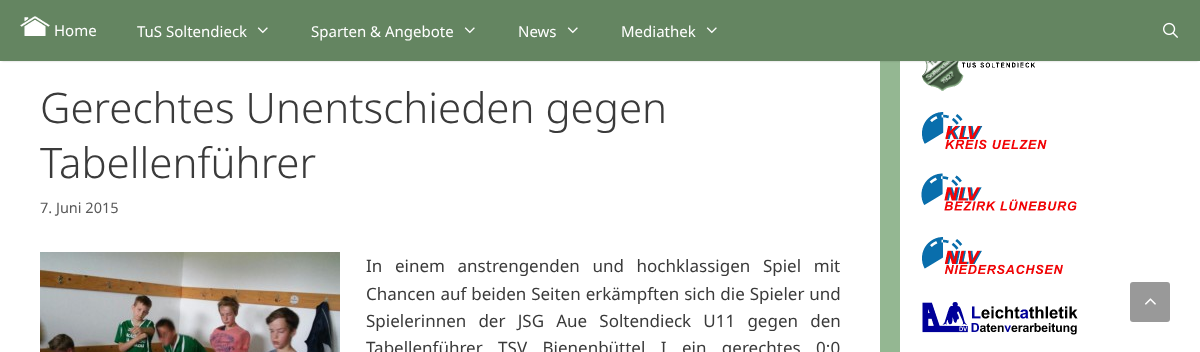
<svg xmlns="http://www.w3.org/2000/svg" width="1200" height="352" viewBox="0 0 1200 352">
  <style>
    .t1 { font: 15px Noto Sans; fill: #fff; }
    .t2 { font: 300 42px Noto Sans; fill: #3a3a3a; }
    .t3 { font: 14.5px Noto Sans; fill: #595959; }
    .t4 { font: 17px Noto Sans; fill: #3a3a3a; }
  </style>
  <rect width="100%" height="100%" fill="#94b792"/>
  <rect x="0" y="61" width="880" height="291" fill="#fff"/>
  <rect x="900" y="61" width="300" height="291" fill="#fff"/>
  <image x="922" y="61" width="113" height="30" href="images/5.png"/>
  <rect x="2" y="4" width="1196" height="57" fill="#00000033" filter="blur(1px)"/>
  <rect x="0" y="0" width="1200" height="61" fill="#648561"/>
  <image x="20" y="16" width="30" height="20" href="images/1.png"/>
  <text x="54" y="36" class="t1">Home</text>
  <text x="137" y="37" class="t1">TuS Soltendieck</text>
  <image x="257" y="27" width="11" height="7" href="images/2.png"/>
  <text x="311" y="37" class="t1">Sparten &amp; Angebote</text>
  <image x="464" y="27" width="11" height="7" href="images/2.png"/>
  <text x="518" y="37" class="t1">News</text>
  <image x="567" y="27" width="11" height="7" href="images/2.png"/>
  <text x="621" y="37" class="t1">Mediathek</text>
  <image x="706" y="27" width="11" height="7" href="images/2.png"/>
  <image x="1163" y="22" width="15" height="16" href="images/3.png"/>
  <text x="40" y="123" class="t2">Gerechtes Unentschieden gegen</text>
  <text x="40" y="178" class="t2">Tabellenführer</text>
  <text x="40" y="213" class="t3">7. Juni 2015</text>
  <image x="40" y="252" width="300" height="100" href="images/4.png"/>
  <text x="366" y="272" word-spacing="8.25" class="t4">In einem anstrengenden und hochklassigen Spiel mit</text>
  <text x="366" y="300" word-spacing="0.5" class="t4">Chancen auf beiden Seiten erkämpften sich die Spieler und</text>
  <text x="366" y="327" word-spacing="7.75" class="t4">Spielerinnen der JSG Aue Soltendieck U11 gegen den</text>
  <text x="366" y="354" word-spacing="11" class="t4">Tabellenführer TSV Bienenbüttel I ein gerechtes 0:0</text>
  <image x="922" y="112" width="125" height="37" href="images/6.png"/>
  <image x="921" y="173" width="156" height="38" href="images/7.png"/>
  <image x="922" y="237" width="141" height="37" href="images/8.png"/>
  <image x="922" y="302" width="156" height="33" href="images/9.png"/>
  <rect x="1130" y="282" width="40" height="40" rx="3" fill="#999"/>
  <image x="1145" y="298" width="11" height="7" href="images/10.png"/>
</svg>
